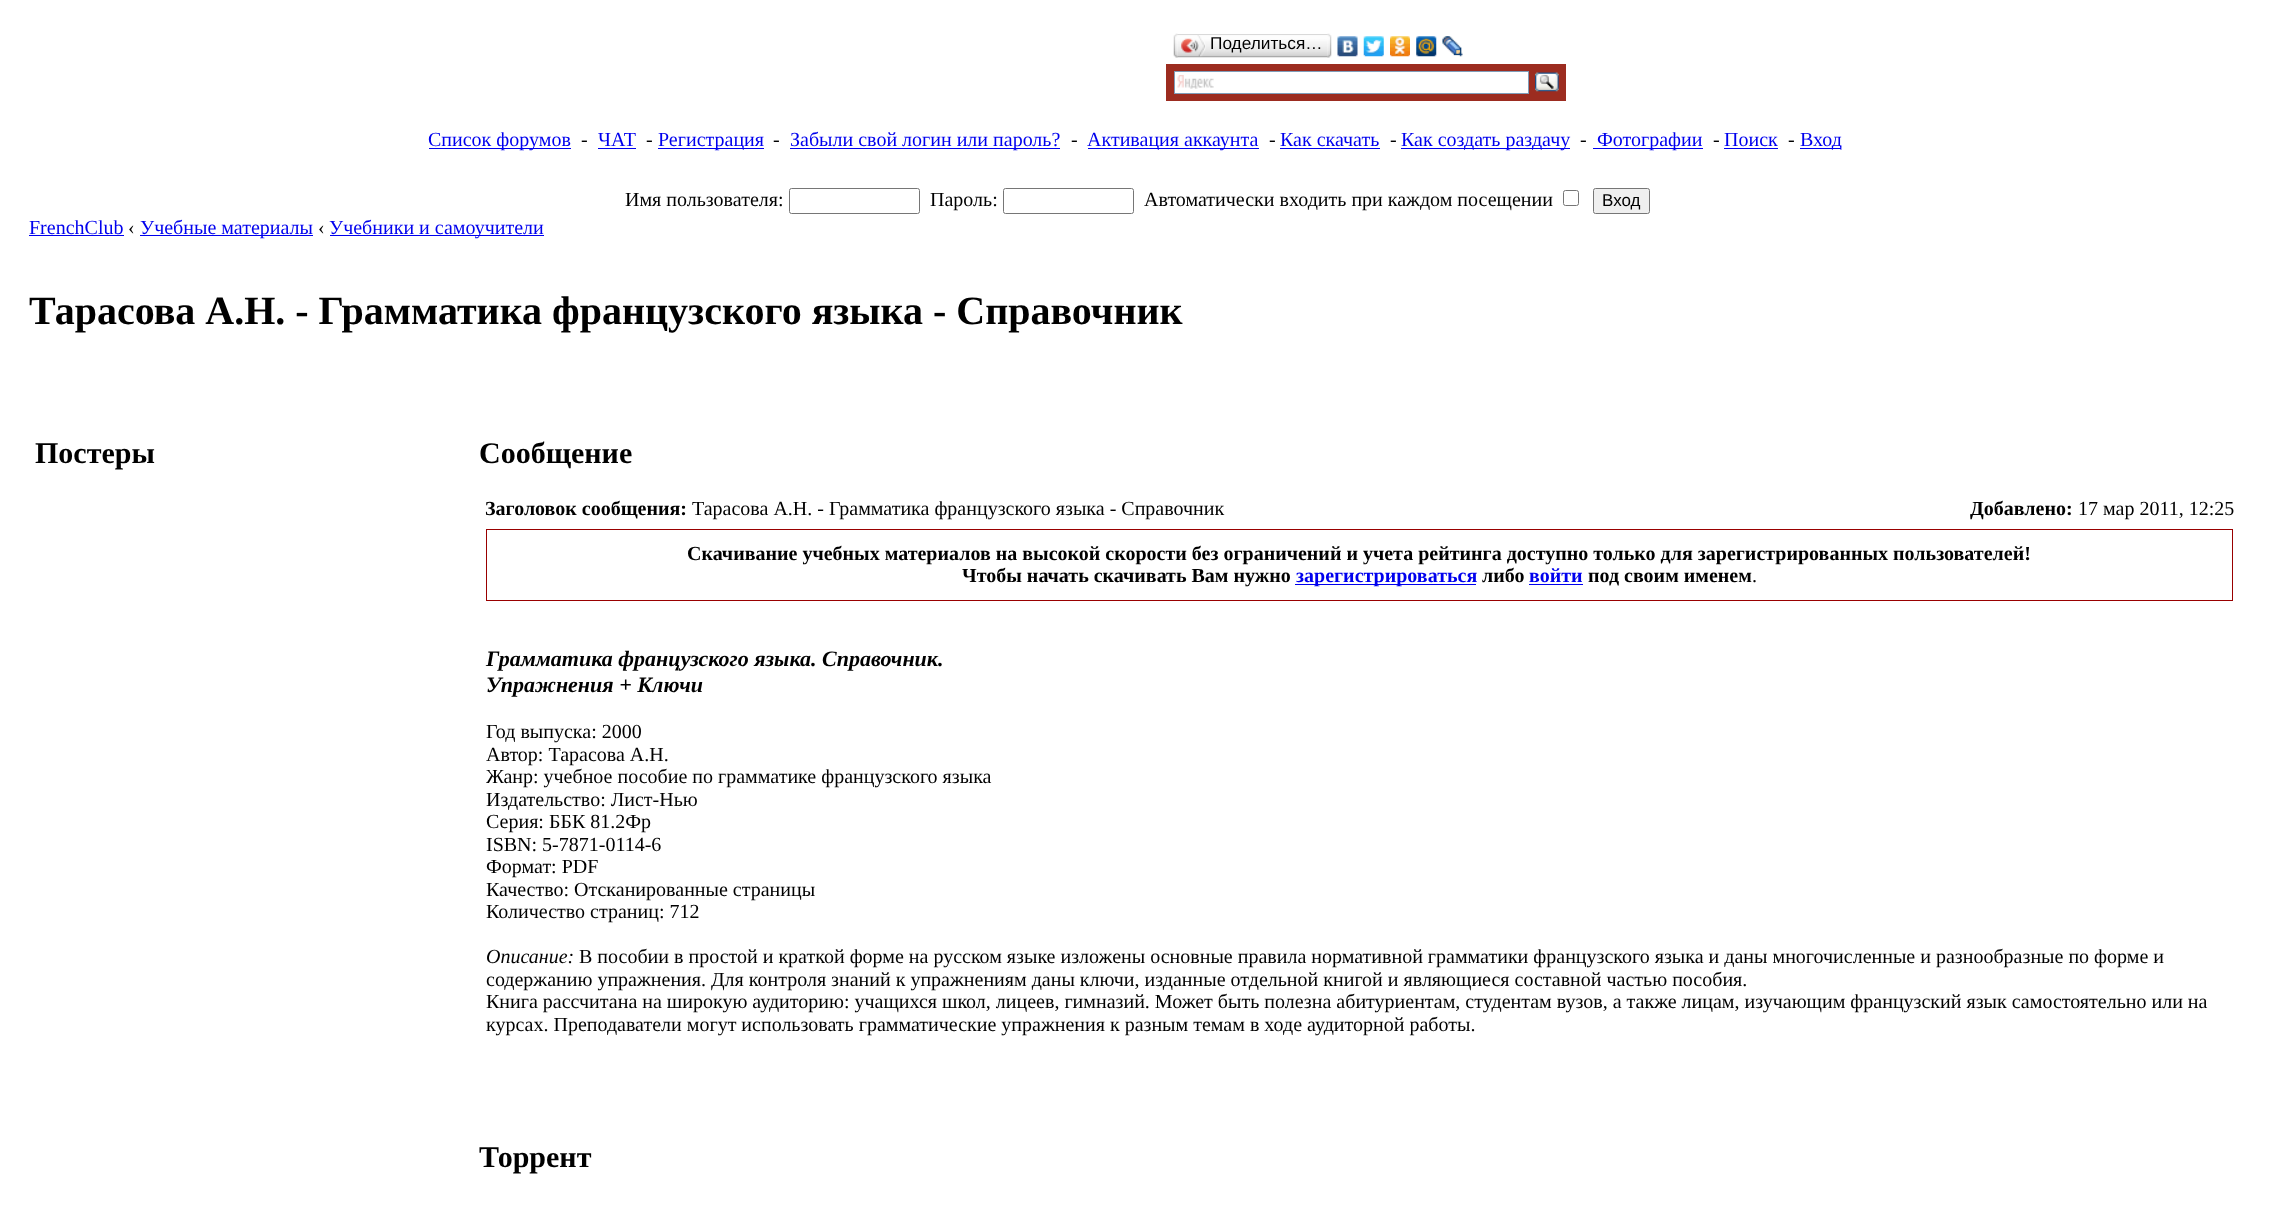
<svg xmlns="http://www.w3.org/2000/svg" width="2274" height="1209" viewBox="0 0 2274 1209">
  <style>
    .t1 { font: 17.25px Liberation Sans; fill: #000; }
    .t2 { font: 20px Liberation Serif; fill: #00e; }
    .t3 { font: 20px Liberation Serif; fill: #000; }
    .t4 { font: 17px Liberation Sans; fill: #000; }
    .t5 { font: bold 40px Liberation Serif; fill: #000; }
    .t6 { font: bold 30px Liberation Serif; fill: #000; }
    .t7 { font: bold 20px Liberation Serif; fill: #000; }
    .t8 { font: bold 20px Liberation Serif; fill: #00e; }
    .t9 { font: italic bold 22px Liberation Serif; fill: #000; }
    .t10 { font: italic 20px Liberation Serif; fill: #000; }
  </style>
  <rect width="100%" height="100%" fill="#fff"/>
  <image x="1177" y="34" width="151" height="24" href="images/1.png"/>
  <image x="1173" y="33" width="5" height="25" href="images/2.png"/>
  <image x="1181" y="35" width="25" height="22" href="images/3.png"/>
  <text x="1210" y="49" class="t1">Поделиться…</text>
  <image x="1327" y="33" width="5" height="25" href="images/4.png"/>
  <image x="1337" y="36" width="21" height="21" href="images/5.png"/>
  <image x="1363" y="36" width="21" height="21" href="images/6.png"/>
  <image x="1390" y="36" width="20" height="21" href="images/7.png"/>
  <image x="1416" y="36" width="21" height="21" href="images/8.png"/>
  <image x="1442" y="36" width="21" height="21" href="images/9.png"/>
  <rect x="1166" y="64" width="400" height="37" fill="#9c2c20"/>
  <rect x="1175" y="72" width="353" height="21" fill="#fff"/>
  <image x="1177" y="75" width="37" height="14" href="images/10.png"/>
  <rect x="1174.5" y="71.5" width="354" height="22" fill="none" stroke="#7f9db9"/>
  <image x="1535" y="72" width="24" height="20" href="images/11.png"/>
  <rect x="429" y="148" width="142" height="1" fill="#00e"/>
  <text x="428" y="146" class="t2">Список форумов</text>
  <text x="581" y="146" class="t3">-</text>
  <text x="598" y="146" class="t2">ЧАТ</text>
  <rect x="598" y="148" width="38" height="1" fill="#00e"/>
  <text x="646" y="146" class="t3">-</text>
  <rect x="658" y="148" width="106" height="1" fill="#00e"/>
  <text x="658" y="146" class="t2">Регистрация</text>
  <text x="773" y="146" class="t3">-</text>
  <rect x="790" y="148" width="270" height="1" fill="#00e"/>
  <text x="790" y="146" class="t2">Забыли свой логин или пароль?</text>
  <text x="1071" y="146" class="t3">-</text>
  <rect x="1088" y="148" width="171" height="1" fill="#00e"/>
  <text x="1087" y="146" class="t2">Активация аккаунта</text>
  <text x="1269" y="146" class="t3">-</text>
  <text x="1280" y="146" class="t2">Как скачать</text>
  <rect x="1280" y="148" width="100" height="1" fill="#00e"/>
  <text x="1390" y="146" class="t3">-</text>
  <rect x="1401" y="148" width="169" height="1" fill="#00e"/>
  <text x="1401" y="146" class="t2">Как создать раздачу</text>
  <text x="1580" y="146" class="t3">-</text>
  <rect x="1593" y="148" width="110" height="1" fill="#00e"/>
  <text x="1597" y="146" class="t2">Фотографии</text>
  <text x="1713" y="146" class="t3">-</text>
  <text x="1724" y="146" class="t2">Поиск</text>
  <rect x="1724" y="148" width="54" height="1" fill="#00e"/>
  <text x="1788" y="146" class="t3">-</text>
  <rect x="1800" y="148" width="41" height="1" fill="#00e"/>
  <text x="1800" y="146" class="t2">Вход</text>
  <text x="625" y="206" class="t3">Имя пользователя:</text>
  <rect x="789.5" y="188.5" width="130" height="25" rx="2" fill="none" stroke="#767676"/>
  <text x="930" y="206" class="t3">Пароль:</text>
  <rect x="1003.5" y="188.5" width="130" height="25" rx="2" fill="none" stroke="#767676"/>
  <text x="1144" y="206" class="t3">Автоматически входить при каждом посещении</text>
  <rect x="1563.5" y="190.5" width="15" height="15" rx="2" fill="none" stroke="#767676"/>
  <rect x="1593.5" y="188.5" width="56" height="25" rx="2" fill="#efefef" stroke="#767676"/>
  <text x="1602" y="206" class="t4">Вход</text>
  <text x="29" y="234" class="t2">FrenchClub</text>
  <rect x="29" y="235" width="95" height="1" fill="#00e"/>
  <text x="128" y="234" class="t3">‹</text>
  <rect x="140" y="235" width="173" height="1" fill="#00e"/>
  <text x="140" y="234" class="t2">Учебные материалы</text>
  <text x="318" y="234" class="t3">‹</text>
  <rect x="330" y="235" width="214" height="1" fill="#00e"/>
  <text x="329" y="234" class="t2">Учебники и самоучители</text>
  <text x="29" y="324" class="t5">Тарасова А.Н. - Грамматика французского языка - Справочник</text>
  <text x="35" y="463" class="t6">Постеры</text>
  <text x="479" y="463" class="t6">Сообщение</text>
  <text x="485" y="515" class="t7">Заголовок сообщения:</text>
  <text x="692" y="515" class="t3">Тарасова А.Н. - Грамматика французского языка - Справочник</text>
  <text x="1970" y="515" class="t7">Добавлено:</text>
  <text x="2078" y="515" class="t3">17 мар 2011, 12:25</text>
  <rect x="486.5" y="529.5" width="1746" height="71" fill="none" stroke="#900"/>
  <text x="687" y="560" class="t7">Скачивание учебных материалов на высокой скорости без ограничений и учета рейтинга доступно только для зарегистрированных пользователей!</text>
  <text x="962" y="582" class="t7">Чтобы начать скачивать Вам нужно</text>
  <rect x="1295" y="584" width="181" height="1" fill="#00e"/>
  <text x="1296" y="582" class="t8">зарегистрироваться</text>
  <text x="1482" y="582" class="t7">либо</text>
  <text x="1529" y="582" class="t8">войти</text>
  <text x="1588" y="582" class="t7">под своим именем</text>
  <rect x="1529" y="584" width="54" height="1" fill="#00e"/>
  <text x="1752" y="582" class="t3">.</text>
  <text x="486" y="666" class="t9">Грамматика французского языка. Справочник.</text>
  <text x="486" y="692" class="t9">Упражнения + Ключи</text>
  <text x="486" y="738" class="t3">Год выпуска: 2000</text>
  <text x="486" y="761" class="t3">Автор: Тарасова А.Н.</text>
  <text x="486" y="783" class="t3">Жанр: учебное пособие по грамматике французского языка</text>
  <text x="486" y="806" class="t3">Издательство: Лист-Нью</text>
  <text x="486" y="828" class="t3">Серия: ББК 81.2Фр</text>
  <text x="486" y="851" class="t3">ISBN: 5-7871-0114-6</text>
  <text x="486" y="873" class="t3">Формат: PDF</text>
  <text x="486" y="896" class="t3">Качество: Отсканированные страницы</text>
  <text x="486" y="918" class="t3">Количество страниц: 712</text>
  <text x="486" y="963" class="t10">Описание:</text>
  <text x="579" y="963" class="t3">В пособии в простой и краткой форме на русском языке изложены основные правила нормативной грамматики французского языка и даны многочисленные и разнообразные по форме и</text>
  <text x="486" y="986" class="t3">содержанию упражнения. Для контроля знаний к упражнениям даны ключи, изданные отдельной книгой и являющиеся составной частью пособия.</text>
  <text x="486" y="1008" class="t3">Книга рассчитана на широкую аудиторию: учащихся школ, лицеев, гимназий. Может быть полезна абитуриентам, студентам вузов, а также лицам, изучающим французский язык самостоятельно или на</text>
  <text x="486" y="1031" class="t3">курсах. Преподаватели могут использовать грамматические упражнения к разным темам в ходе аудиторной работы.</text>
  <text x="479" y="1167" class="t6">Торрент</text>
</svg>
